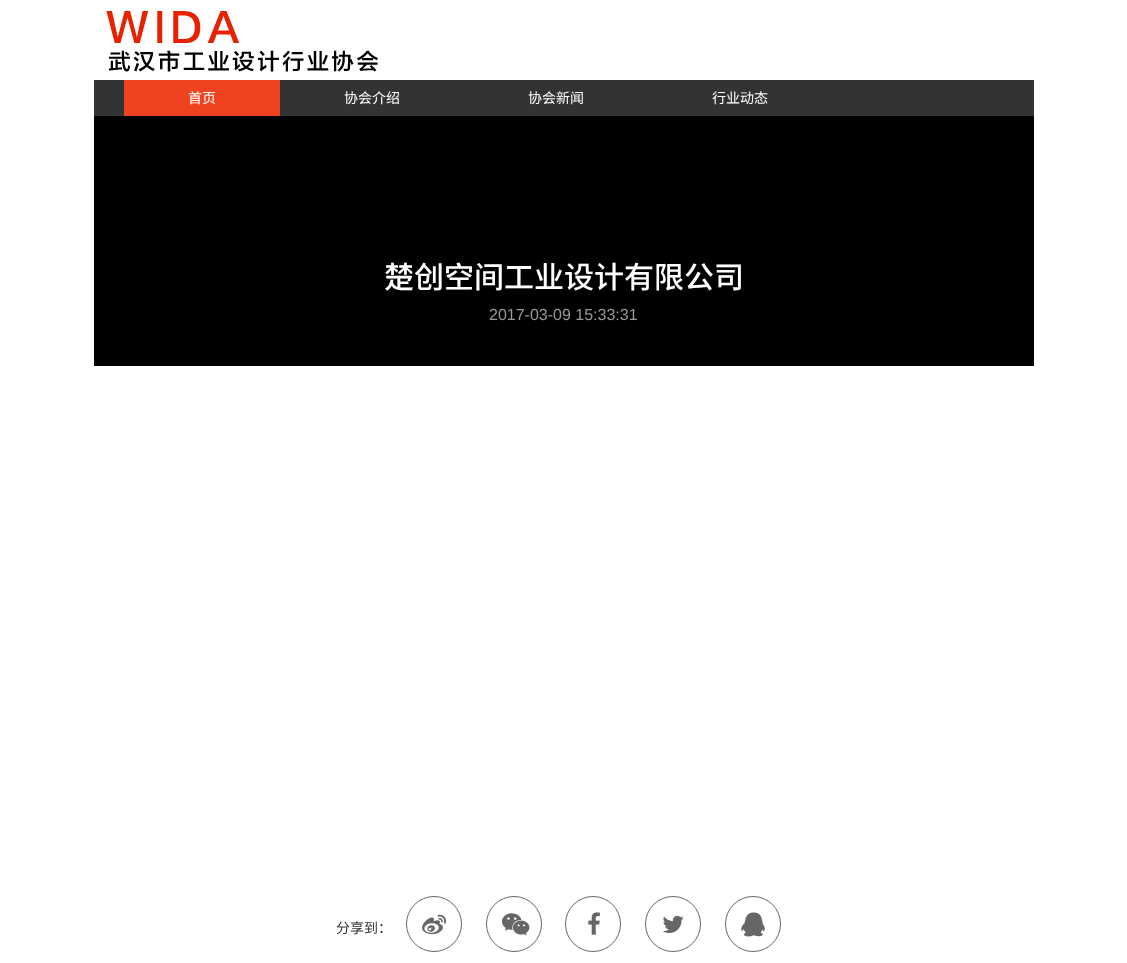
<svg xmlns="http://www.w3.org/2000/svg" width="1127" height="963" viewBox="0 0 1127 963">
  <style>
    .t1 { font: 14px Noto Sans CJK SC; fill: #fff; }
    .t2 { font: 500 30px Noto Sans CJK SC; fill: #fff; }
    .t3 { font: 16px Liberation Sans; fill: #999; }
    .t4 { font: 14px Noto Sans CJK SC; fill: #333; }
  </style>
  <rect width="100%" height="100%" fill="#fff"/>
  <image x="106" y="11" width="272" height="61" href="images/1.png"/>
  <rect x="94" y="80" width="940" height="36" fill="#333"/>
  <rect x="124" y="80" width="156" height="36" fill="#ef4220"/>
  <text x="188" y="103" class="t1">首页</text>
  <text x="344" y="103" class="t1">协会介绍</text>
  <text x="528" y="103" class="t1">协会新闻</text>
  <text x="712" y="103" class="t1">行业动态</text>
  <rect x="94" y="116" width="940" height="250" fill="#000"/>
  <text x="384" y="288" class="t2">楚创空间工业设计有限公司</text>
  <text x="489" y="320" class="t3">2017-03-09 15:33:31</text>
  <text x="336" y="933" class="t4">分享到：</text>
  <circle cx="434" cy="924" r="27.5" fill="none" stroke="#666"/>
  <image x="422" y="914" width="24" height="21" href="images/2.png"/>
  <circle cx="514" cy="924" r="27.5" fill="none" stroke="#666"/>
  <image x="502" y="913" width="28" height="23" href="images/3.png"/>
  <circle cx="593" cy="924" r="27.5" fill="none" stroke="#666"/>
  <image x="588" y="912" width="12" height="23" href="images/4.png"/>
  <circle cx="673" cy="924" r="27.5" fill="none" stroke="#666"/>
  <image x="662" y="915" width="22" height="18" href="images/5.png"/>
  <circle cx="753" cy="924" r="27.5" fill="none" stroke="#666"/>
  <image x="741" y="912" width="24" height="25" href="images/6.png"/>
</svg>
